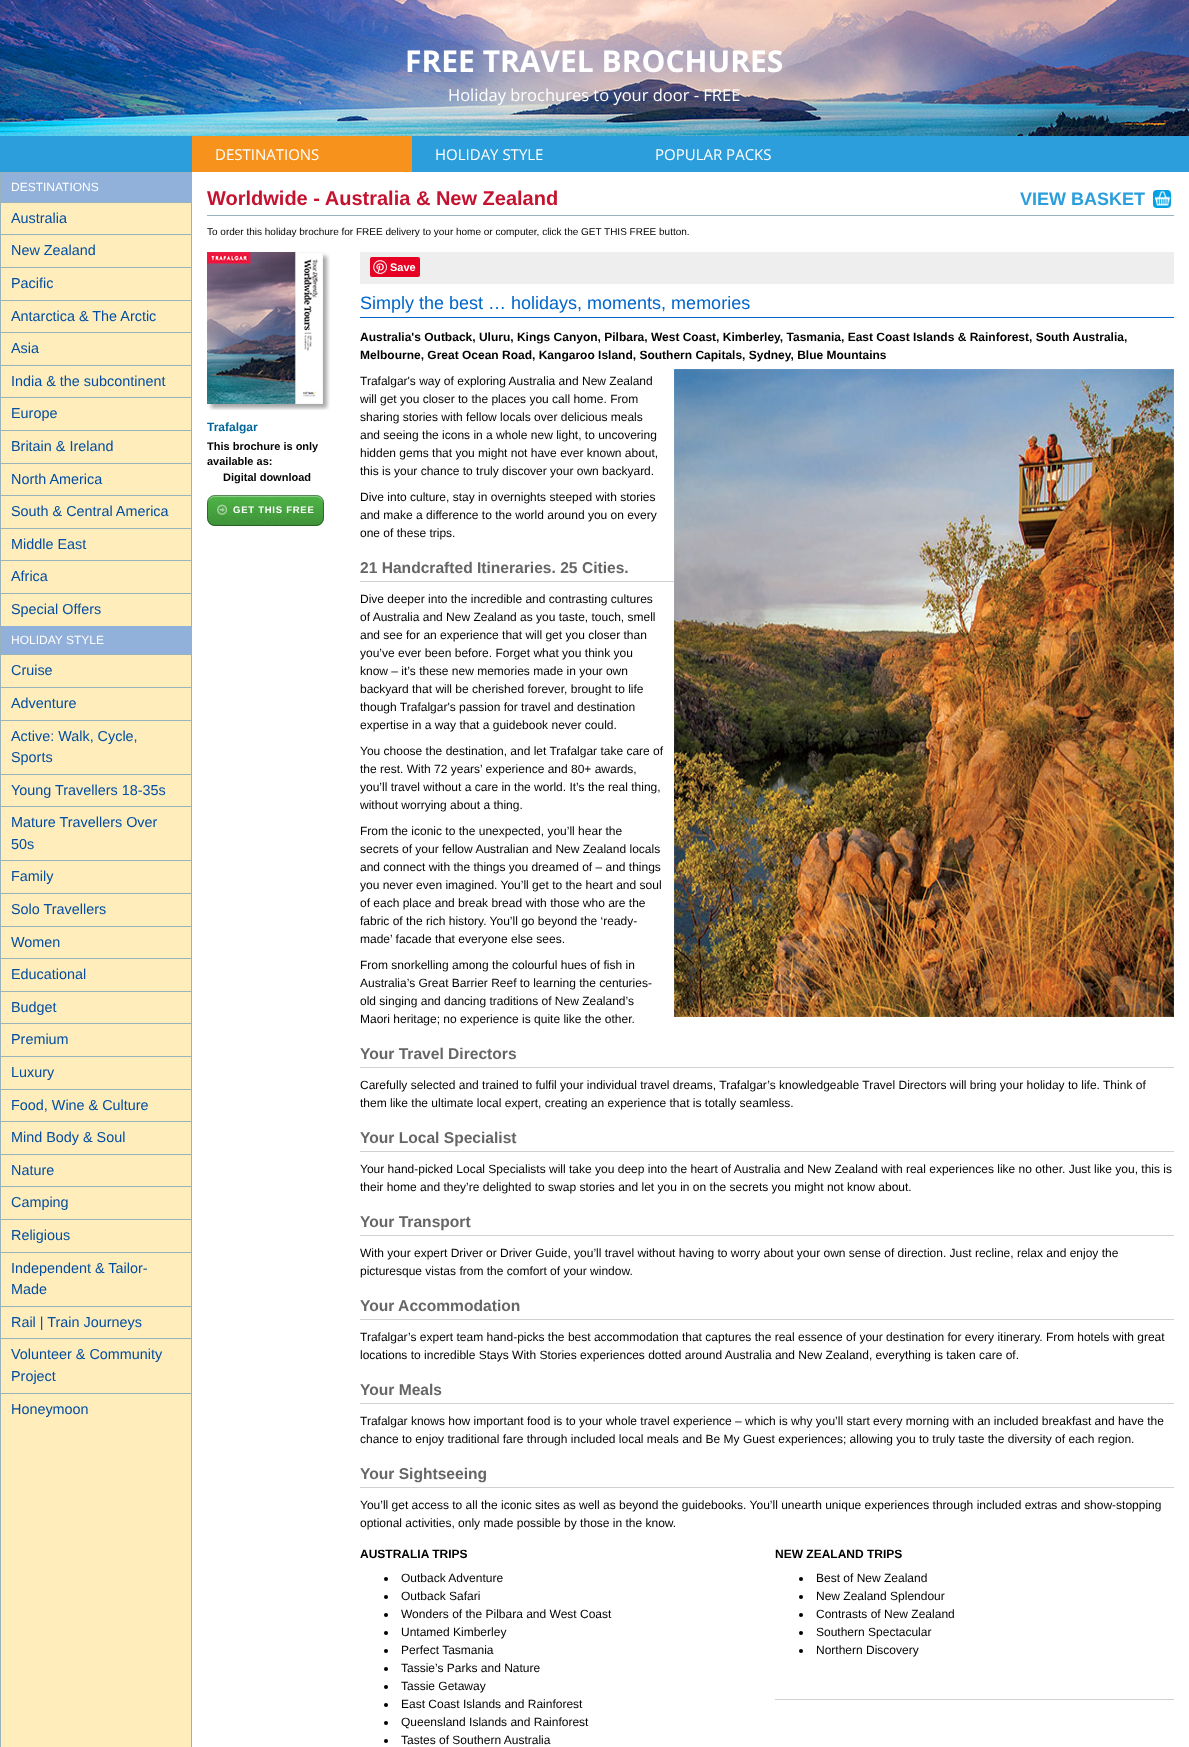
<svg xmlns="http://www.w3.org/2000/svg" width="1189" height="1747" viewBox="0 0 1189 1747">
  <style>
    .t1 { font: bold 30px Open Sans; fill: #fff; }
    .t2 { font: 16.5px Open Sans; fill: #fff; }
    .t3 { font: 15px Open Sans; fill: #fff; }
    .t4 { font: 12px Liberation Sans; fill: #fff; }
    .t5 { font: 14.4px Liberation Sans; fill: #034ea2; }
    .t6 { font: bold 20px Liberation Sans; fill: #c4122f; }
    .t7 { font: bold 18px Liberation Sans; fill: #2c9edc; }
    .t8 { font: 10px Liberation Sans; fill: #000; }
    .t9 { font: bold 12px Liberation Sans; fill: #069; }
    .t10 { font: bold 11px Liberation Sans; fill: #000; }
    .t11 { font: bold 9.5px Liberation Sans; letter-spacing: 0.75px; fill: #fff; }
    .t12 { font: bold 11px Liberation Sans; fill: #fff; }
    .t13 { font: 18px Liberation Sans; fill: #06c; }
    .t14 { font: bold 12px Liberation Sans; fill: #000; }
    .t15 { font: 12px Liberation Sans; fill: #000; }
    .t16 { font: bold 15.6px Liberation Sans; fill: #666; }
  </style>
  <rect width="100%" height="100%" fill="#fff"/>
  <image x="0" y="0" width="1189" height="136" href="images/1.png"/>
  <text x="405" y="72" class="t1">FREE TRAVEL BROCHURES</text>
  <text x="448" y="101" class="t2">Holiday brochures to your door - FREE</text>
  <rect x="0" y="136" width="1189" height="36" fill="#2c9edc"/>
  <rect x="192" y="136" width="220" height="36" fill="#f7931d"/>
  <text x="215" y="160" class="t3">DESTINATIONS</text>
  <text x="435" y="160" class="t3">HOLIDAY STYLE</text>
  <text x="655" y="160" class="t3">POPULAR PACKS</text>
  <rect x="1" y="1425" width="190" height="322" fill="#ffeebc"/>
  <rect x="0.5" y="172.5" width="191" height="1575" fill="none" stroke="#9ab2bc"/>
  <rect x="1" y="173" width="190" height="29" fill="#91b0da"/>
  <text x="11" y="191" class="t4">DESTINATIONS</text>
  <rect x="1" y="203" width="190" height="31" fill="#ffeebc"/>
  <rect x="1" y="202" width="190" height="1" fill="#9ab2bc"/>
  <text x="11" y="223" class="t5">Australia</text>
  <rect x="1" y="235" width="190" height="32" fill="#ffeebc"/>
  <rect x="1" y="234" width="190" height="1" fill="#9ab2bc"/>
  <text x="11" y="255" class="t5">New Zealand</text>
  <rect x="1" y="268" width="190" height="32" fill="#ffeebc"/>
  <rect x="1" y="267" width="190" height="1" fill="#9ab2bc"/>
  <text x="11" y="288" class="t5">Pacific</text>
  <rect x="1" y="301" width="190" height="31" fill="#ffeebc"/>
  <rect x="1" y="300" width="190" height="1" fill="#9ab2bc"/>
  <text x="11" y="321" class="t5">Antarctica &amp; The Arctic</text>
  <rect x="1" y="333" width="190" height="32" fill="#ffeebc"/>
  <rect x="1" y="332" width="190" height="1" fill="#9ab2bc"/>
  <text x="11" y="353" class="t5">Asia</text>
  <rect x="1" y="366" width="190" height="31" fill="#ffeebc"/>
  <rect x="1" y="365" width="190" height="1" fill="#9ab2bc"/>
  <text x="11" y="386" class="t5">India &amp; the subcontinent</text>
  <rect x="1" y="398" width="190" height="32" fill="#ffeebc"/>
  <rect x="1" y="397" width="190" height="1" fill="#9ab2bc"/>
  <text x="11" y="418" class="t5">Europe</text>
  <rect x="1" y="431" width="190" height="32" fill="#ffeebc"/>
  <rect x="1" y="430" width="190" height="1" fill="#9ab2bc"/>
  <text x="11" y="451" class="t5">Britain &amp; Ireland</text>
  <rect x="1" y="464" width="190" height="31" fill="#ffeebc"/>
  <rect x="1" y="463" width="190" height="1" fill="#9ab2bc"/>
  <text x="11" y="484" class="t5">North America</text>
  <rect x="1" y="496" width="190" height="32" fill="#ffeebc"/>
  <rect x="1" y="495" width="190" height="1" fill="#9ab2bc"/>
  <text x="11" y="516" class="t5">South &amp; Central America</text>
  <rect x="1" y="529" width="190" height="31" fill="#ffeebc"/>
  <rect x="1" y="528" width="190" height="1" fill="#9ab2bc"/>
  <text x="11" y="549" class="t5">Middle East</text>
  <rect x="1" y="561" width="190" height="32" fill="#ffeebc"/>
  <rect x="1" y="560" width="190" height="1" fill="#9ab2bc"/>
  <text x="11" y="581" class="t5">Africa</text>
  <rect x="1" y="594" width="190" height="32" fill="#ffeebc"/>
  <rect x="1" y="593" width="190" height="1" fill="#9ab2bc"/>
  <text x="11" y="614" class="t5">Special Offers</text>
  <rect x="1" y="626" width="190" height="28" fill="#91b0da"/>
  <text x="11" y="644" class="t4">HOLIDAY STYLE</text>
  <rect x="1" y="655" width="190" height="32" fill="#ffeebc"/>
  <rect x="1" y="654" width="190" height="1" fill="#9ab2bc"/>
  <text x="11" y="675" class="t5">Cruise</text>
  <rect x="1" y="688" width="190" height="32" fill="#ffeebc"/>
  <rect x="1" y="687" width="190" height="1" fill="#9ab2bc"/>
  <text x="11" y="708" class="t5">Adventure</text>
  <rect x="1" y="721" width="190" height="53" fill="#ffeebc"/>
  <rect x="1" y="720" width="190" height="1" fill="#9ab2bc"/>
  <text x="11" y="741" class="t5">Active: Walk, Cycle,</text>
  <text x="11" y="762" class="t5">Sports</text>
  <rect x="1" y="775" width="190" height="31" fill="#ffeebc"/>
  <rect x="1" y="774" width="190" height="1" fill="#9ab2bc"/>
  <text x="11" y="795" class="t5">Young Travellers 18-35s</text>
  <rect x="1" y="807" width="190" height="53" fill="#ffeebc"/>
  <rect x="1" y="806" width="190" height="1" fill="#9ab2bc"/>
  <text x="11" y="827" class="t5">Mature Travellers Over</text>
  <text x="11" y="849" class="t5">50s</text>
  <rect x="1" y="861" width="190" height="32" fill="#ffeebc"/>
  <rect x="1" y="860" width="190" height="1" fill="#9ab2bc"/>
  <text x="11" y="881" class="t5">Family</text>
  <rect x="1" y="894" width="190" height="32" fill="#ffeebc"/>
  <rect x="1" y="893" width="190" height="1" fill="#9ab2bc"/>
  <text x="11" y="914" class="t5">Solo Travellers</text>
  <rect x="1" y="927" width="190" height="31" fill="#ffeebc"/>
  <rect x="1" y="926" width="190" height="1" fill="#9ab2bc"/>
  <text x="11" y="947" class="t5">Women</text>
  <rect x="1" y="959" width="190" height="32" fill="#ffeebc"/>
  <rect x="1" y="958" width="190" height="1" fill="#9ab2bc"/>
  <text x="11" y="979" class="t5">Educational</text>
  <rect x="1" y="992" width="190" height="31" fill="#ffeebc"/>
  <rect x="1" y="991" width="190" height="1" fill="#9ab2bc"/>
  <text x="11" y="1012" class="t5">Budget</text>
  <rect x="1" y="1024" width="190" height="32" fill="#ffeebc"/>
  <rect x="1" y="1023" width="190" height="1" fill="#9ab2bc"/>
  <text x="11" y="1044" class="t5">Premium</text>
  <rect x="1" y="1057" width="190" height="32" fill="#ffeebc"/>
  <rect x="1" y="1056" width="190" height="1" fill="#9ab2bc"/>
  <text x="11" y="1077" class="t5">Luxury</text>
  <rect x="1" y="1090" width="190" height="31" fill="#ffeebc"/>
  <rect x="1" y="1089" width="190" height="1" fill="#9ab2bc"/>
  <text x="11" y="1110" class="t5">Food, Wine &amp; Culture</text>
  <rect x="1" y="1122" width="190" height="32" fill="#ffeebc"/>
  <rect x="1" y="1121" width="190" height="1" fill="#9ab2bc"/>
  <text x="11" y="1142" class="t5">Mind Body &amp; Soul</text>
  <rect x="1" y="1155" width="190" height="31" fill="#ffeebc"/>
  <rect x="1" y="1154" width="190" height="1" fill="#9ab2bc"/>
  <text x="11" y="1175" class="t5">Nature</text>
  <rect x="1" y="1187" width="190" height="32" fill="#ffeebc"/>
  <rect x="1" y="1186" width="190" height="1" fill="#9ab2bc"/>
  <text x="11" y="1207" class="t5">Camping</text>
  <rect x="1" y="1220" width="190" height="32" fill="#ffeebc"/>
  <rect x="1" y="1219" width="190" height="1" fill="#9ab2bc"/>
  <text x="11" y="1240" class="t5">Religious</text>
  <rect x="1" y="1253" width="190" height="53" fill="#ffeebc"/>
  <rect x="1" y="1252" width="190" height="1" fill="#9ab2bc"/>
  <text x="11" y="1273" class="t5">Independent &amp; Tailor-</text>
  <text x="11" y="1294" class="t5">Made</text>
  <rect x="1" y="1307" width="190" height="31" fill="#ffeebc"/>
  <rect x="1" y="1306" width="190" height="1" fill="#9ab2bc"/>
  <text x="11" y="1327" class="t5">Rail | Train Journeys</text>
  <rect x="1" y="1339" width="190" height="54" fill="#ffeebc"/>
  <rect x="1" y="1338" width="190" height="1" fill="#9ab2bc"/>
  <text x="11" y="1359" class="t5">Volunteer &amp; Community</text>
  <text x="11" y="1381" class="t5">Project</text>
  <rect x="1" y="1394" width="190" height="31" fill="#ffeebc"/>
  <rect x="1" y="1393" width="190" height="1" fill="#9ab2bc"/>
  <text x="11" y="1414" class="t5">Honeymoon</text>
  <rect x="207" y="215" width="967" height="1" fill="#9ab2bc"/>
  <text x="207" y="205" class="t6">Worldwide - Australia &amp; New Zealand</text>
  <text x="1020" y="205" class="t7">VIEW BASKET</text>
  <image x="1153" y="190" width="18" height="18" href="images/2.png"/>
  <text x="207" y="235" class="t8">To order this holiday brochure for FREE delivery to your home or computer, click the GET THIS FREE button.</text>
  <image x="207" y="252" width="123" height="158" href="images/3.png"/>
  <text x="207" y="431" class="t9">Trafalgar</text>
  <text x="207" y="450" class="t10">This brochure is only</text>
  <text x="207" y="465" class="t10">available as:</text>
  <text x="223" y="481" class="t10">Digital download</text>
  <rect x="207" y="495" width="117" height="31" rx="8" fill="#50b848"/>
  <image x="207" y="495" width="117" height="31" href="images/4.png"/>
  <path d="M215 497H316C320 497 324 501 324 505C324 491 310 495 299 495H232C221 495 207 491 207 505C207 501 211 497 215 497Z" fill="#ffffff59"/>
  <rect x="207.5" y="495.5" width="116" height="30" rx="7.5" fill="none" stroke="#00000059"/>
  <image x="217" y="504" width="11" height="11" href="images/5.png"/>
  <text x="233" y="513" class="t11">GET THIS FREE</text>
  <rect x="360" y="252" width="814" height="32" fill="#eee"/>
  <rect x="370" y="257" width="50" height="20" rx="2" fill="#e60023"/>
  <image x="373" y="260" width="14" height="14" href="images/6.png"/>
  <text x="390" y="271" class="t12">Save</text>
  <rect x="360" y="317" width="814" height="1" fill="#06c"/>
  <text x="360" y="309" class="t13">Simply the best … holidays, moments, memories</text>
  <text x="360" y="341" class="t14">Australia's Outback, Uluru, Kings Canyon, Pilbara, West Coast, Kimberley, Tasmania, East Coast Islands &amp; Rainforest, South Australia,</text>
  <text x="360" y="359" class="t14">Melbourne, Great Ocean Road, Kangaroo Island, Southern Capitals, Sydney, Blue Mountains</text>
  <text x="360" y="385" class="t15">Trafalgar's way of exploring Australia and New Zealand</text>
  <text x="360" y="403" class="t15">will get you closer to the places you call home. From</text>
  <text x="360" y="421" class="t15">sharing stories with fellow locals over delicious meals</text>
  <text x="360" y="439" class="t15">and seeing the icons in a whole new light, to uncovering</text>
  <text x="360" y="457" class="t15">hidden gems that you might not have ever known about,</text>
  <text x="360" y="475" class="t15">this is your chance to truly discover your own backyard.</text>
  <image x="674" y="369" width="500" height="648" href="images/7.png"/>
  <text x="360" y="501" class="t15">Dive into culture, stay in overnights steeped with stories</text>
  <text x="360" y="519" class="t15">and make a difference to the world around you on every</text>
  <text x="360" y="537" class="t15">one of these trips.</text>
  <rect x="360" y="581" width="314" height="1" fill="#d1d1d1"/>
  <text x="360" y="573" class="t16">21 Handcrafted Itineraries. 25 Cities.</text>
  <text x="360" y="603" class="t15">Dive deeper into the incredible and contrasting cultures</text>
  <text x="360" y="621" class="t15">of Australia and New Zealand as you taste, touch, smell</text>
  <text x="360" y="639" class="t15">and see for an experience that will get you closer than</text>
  <text x="360" y="657" class="t15">you’ve ever been before. Forget what you think you</text>
  <text x="360" y="675" class="t15">know – it’s these new memories made in your own</text>
  <text x="360" y="693" class="t15">backyard that will be cherished forever, brought to life</text>
  <text x="360" y="711" class="t15">though Trafalgar's passion for travel and destination</text>
  <text x="360" y="729" class="t15">expertise in a way that a guidebook never could.</text>
  <text x="360" y="755" class="t15">You choose the destination, and let Trafalgar take care of</text>
  <text x="360" y="773" class="t15">the rest. With 72 years’ experience and 80+ awards,</text>
  <text x="360" y="791" class="t15">you’ll travel without a care in the world. It’s the real thing,</text>
  <text x="360" y="809" class="t15">without worrying about a thing.</text>
  <text x="360" y="835" class="t15">From the iconic to the unexpected, you’ll hear the</text>
  <text x="360" y="853" class="t15">secrets of your fellow Australian and New Zealand locals</text>
  <text x="360" y="871" class="t15">and connect with the things you dreamed of – and things</text>
  <text x="360" y="889" class="t15">you never even imagined. You’ll get to the heart and soul</text>
  <text x="360" y="907" class="t15">of each place and break bread with those who are the</text>
  <text x="360" y="925" class="t15">fabric of the rich history. You’ll go beyond the ‘ready-</text>
  <text x="360" y="943" class="t15">made’ facade that everyone else sees.</text>
  <text x="360" y="969" class="t15">From snorkelling among the colourful hues of fish in</text>
  <text x="360" y="987" class="t15">Australia’s Great Barrier Reef to learning the centuries-</text>
  <text x="360" y="1005" class="t15">old singing and dancing traditions of New Zealand’s</text>
  <text x="360" y="1023" class="t15">Maori heritage; no experience is quite like the other.</text>
  <rect x="360" y="1067" width="814" height="1" fill="#d1d1d1"/>
  <text x="360" y="1059" class="t16">Your Travel Directors</text>
  <text x="360" y="1089" class="t15">Carefully selected and trained to fulfil your individual travel dreams, Trafalgar’s knowledgeable Travel Directors will bring your holiday to life. Think of</text>
  <text x="360" y="1107" class="t15">them like the ultimate local expert, creating an experience that is totally seamless.</text>
  <rect x="360" y="1151" width="814" height="1" fill="#d1d1d1"/>
  <text x="360" y="1143" class="t16">Your Local Specialist</text>
  <text x="360" y="1173" class="t15">Your hand-picked Local Specialists will take you deep into the heart of Australia and New Zealand with real experiences like no other. Just like you, this is</text>
  <text x="360" y="1191" class="t15">their home and they’re delighted to swap stories and let you in on the secrets you might not know about.</text>
  <rect x="360" y="1235" width="814" height="1" fill="#d1d1d1"/>
  <text x="360" y="1227" class="t16">Your Transport</text>
  <text x="360" y="1257" class="t15">With your expert Driver or Driver Guide, you’ll travel without having to worry about your own sense of direction. Just recline, relax and enjoy the</text>
  <text x="360" y="1275" class="t15">picturesque vistas from the comfort of your window.</text>
  <rect x="360" y="1319" width="814" height="1" fill="#d1d1d1"/>
  <text x="360" y="1311" class="t16">Your Accommodation</text>
  <text x="360" y="1341" class="t15">Trafalgar’s expert team hand-picks the best accommodation that captures the real essence of your destination for every itinerary. From hotels with great</text>
  <text x="360" y="1359" class="t15">locations to incredible Stays With Stories experiences dotted around Australia and New Zealand, everything is taken care of.</text>
  <rect x="360" y="1403" width="814" height="1" fill="#d1d1d1"/>
  <text x="360" y="1395" class="t16">Your Meals</text>
  <text x="360" y="1425" class="t15">Trafalgar knows how important food is to your whole travel experience – which is why you’ll start every morning with an included breakfast and have the</text>
  <text x="360" y="1443" class="t15">chance to enjoy traditional fare through included local meals and Be My Guest experiences; allowing you to truly taste the diversity of each region.</text>
  <rect x="360" y="1487" width="814" height="1" fill="#d1d1d1"/>
  <text x="360" y="1479" class="t16">Your Sightseeing</text>
  <text x="360" y="1509" class="t15">You’ll get access to all the iconic sites as well as beyond the guidebooks. You’ll unearth unique experiences through included extras and show-stopping</text>
  <text x="360" y="1527" class="t15">optional activities, only made possible by those in the know.</text>
  <text x="360" y="1558" class="t14">AUSTRALIA TRIPS</text>
  <circle cx="386" cy="1579" r="2" fill="#000"/>
  <text x="401" y="1582" class="t15">Outback Adventure</text>
  <circle cx="386" cy="1597" r="2" fill="#000"/>
  <text x="401" y="1600" class="t15">Outback Safari</text>
  <circle cx="386" cy="1615" r="2" fill="#000"/>
  <text x="401" y="1618" class="t15">Wonders of the Pilbara and West Coast</text>
  <circle cx="386" cy="1633" r="2" fill="#000"/>
  <text x="401" y="1636" class="t15">Untamed Kimberley</text>
  <circle cx="386" cy="1651" r="2" fill="#000"/>
  <text x="401" y="1654" class="t15">Perfect Tasmania</text>
  <circle cx="386" cy="1669" r="2" fill="#000"/>
  <text x="401" y="1672" class="t15">Tassie’s Parks and Nature</text>
  <circle cx="386" cy="1687" r="2" fill="#000"/>
  <text x="401" y="1690" class="t15">Tassie Getaway</text>
  <circle cx="386" cy="1705" r="2" fill="#000"/>
  <text x="401" y="1708" class="t15">East Coast Islands and Rainforest</text>
  <circle cx="386" cy="1723" r="2" fill="#000"/>
  <text x="401" y="1726" class="t15">Queensland Islands and Rainforest</text>
  <circle cx="386" cy="1741" r="2" fill="#000"/>
  <text x="401" y="1744" class="t15">Tastes of Southern Australia</text>
  <text x="775" y="1558" class="t14">NEW ZEALAND TRIPS</text>
  <circle cx="801" cy="1579" r="2" fill="#000"/>
  <text x="816" y="1582" class="t15">Best of New Zealand</text>
  <circle cx="801" cy="1597" r="2" fill="#000"/>
  <text x="816" y="1600" class="t15">New Zealand Splendour</text>
  <circle cx="801" cy="1615" r="2" fill="#000"/>
  <text x="816" y="1618" class="t15">Contrasts of New Zealand</text>
  <circle cx="801" cy="1633" r="2" fill="#000"/>
  <text x="816" y="1636" class="t15">Southern Spectacular</text>
  <circle cx="801" cy="1651" r="2" fill="#000"/>
  <text x="816" y="1654" class="t15">Northern Discovery</text>
  <rect x="775" y="1699" width="399" height="1" fill="#d1d1d1"/>
</svg>
